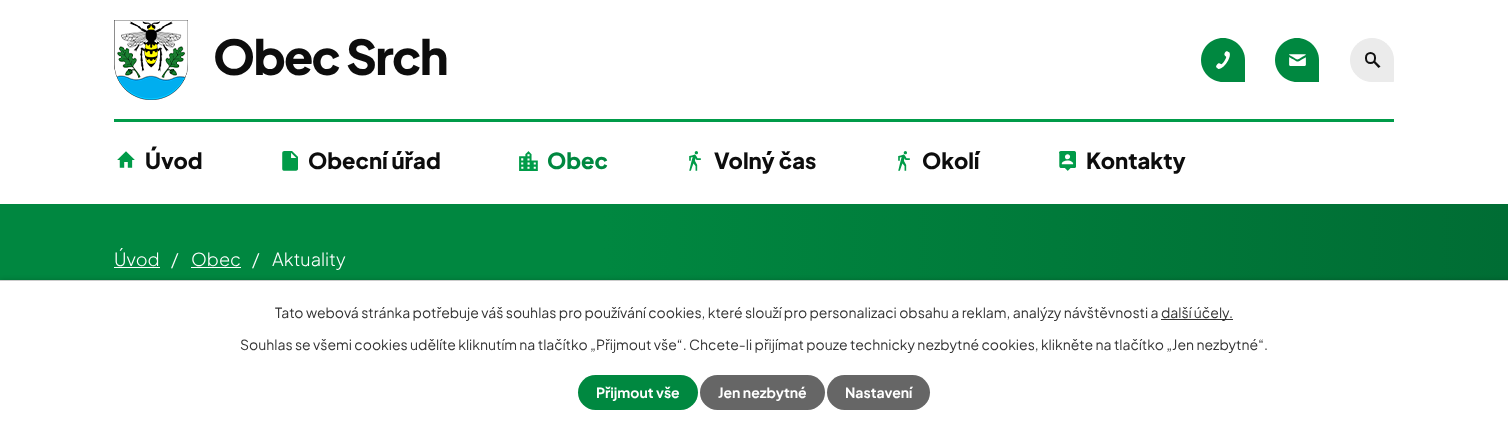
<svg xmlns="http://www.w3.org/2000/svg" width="1508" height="429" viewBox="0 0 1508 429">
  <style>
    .t1 { font: 800 48px Plus Jakarta Sans; letter-spacing: -1.75px; fill: #0d0d0d; }
    .t2 { font: 800 22px Plus Jakarta Sans; fill: #0d0d0d; }
    .t3 { font: 800 22px Plus Jakarta Sans; fill: #008840; }
    .t4 { font: 300 18px Plus Jakarta Sans; fill: #fff; }
    .t5 { font: 14px Plus Jakarta Sans; fill: #333; }
    .t6 { font: bold 14px Plus Jakarta Sans; fill: #fff; }
  </style>
  <defs>
    <linearGradient id="g1" gradientUnits="userSpaceOnUse" x1="0" y1="299" x2="1508" y2="299"><stop offset="0" stop-color="#008740"/><stop offset="0.4" stop-color="#008740"/><stop offset="1" stop-color="#006d34"/></linearGradient>
  </defs>
  <rect width="100%" height="100%" fill="#fff"/>
  <image x="114" y="20" width="74" height="80" href="images/1.png"/>
  <text x="213" y="75" class="t1">Obec Srch</text>
  <path d="M1223 38C1235 38 1245 48 1245 60V82H1223C1211 82 1201 72 1201 60C1201 48 1211 38 1223 38Z" fill="#008840"/>
  <image x="1216" y="51" width="14" height="18" href="images/2.png"/>
  <path d="M1297 38C1309 38 1319 48 1319 60V82H1297C1285 82 1275 72 1275 60C1275 48 1285 38 1297 38Z" fill="#008840"/>
  <image x="1289" y="54" width="17" height="12" href="images/3.png"/>
  <path d="M1372 38.5C1384 38.5 1393.5 48 1393.5 60V81.5H1372C1360 81.5 1350.5 72 1350.5 60C1350.5 48 1360 38.5 1372 38.5Z" fill="#ebebeb" stroke="#ebebeb"/>
  <rect x="1366" y="53" width="9" height="10" rx="4.5" fill="none" stroke="#111" stroke-width="2"/>
  <path d="M1374.5 60.5L1380.5 66.5L1378.5 68L1373 62Z" fill="#111"/>
  <rect x="114" y="119" width="1280" height="3" fill="#009b49"/>
  <image x="117" y="151" width="18" height="17" href="images/4.png"/>
  <text x="145" y="169" class="t2">Úvod</text>
  <image x="282" y="151" width="16" height="20" href="images/5.png"/>
  <text x="308" y="169" class="t2">Obecní úřad</text>
  <image x="519" y="151" width="19" height="20" href="images/6.png"/>
  <text x="547" y="169" class="t3">Obec</text>
  <image x="689" y="151" width="12" height="20" href="images/7.png"/>
  <text x="714" y="169" class="t2">Volný čas</text>
  <image x="898" y="151" width="12" height="20" href="images/7.png"/>
  <text x="922" y="169" class="t2">Okolí</text>
  <image x="1059" y="151" width="17" height="20" href="images/8.png"/>
  <text x="1086" y="169" class="t2">Kontakty</text>
  <rect x="0" y="204" width="1508" height="76" fill="url(#g1)"/>
  <text x="114" y="266" class="t4">Úvod</text>
  <rect x="114" y="267" width="46" height="1" fill="#fff"/>
  <text x="171" y="266" class="t4">/</text>
  <text x="191" y="266" class="t4">Obec</text>
  <rect x="191" y="267" width="50" height="1" fill="#fff"/>
  <text x="252" y="266" class="t4">/</text>
  <text x="272" y="266" class="t4">Aktuality</text>
  <rect x="0" y="280" width="1508" height="149" fill="#00000033" filter="blur(2.5px)"/>
  <rect x="0" y="281" width="1508" height="148" fill="#fff"/>
  <rect x="0" y="280" width="1508" height="1" fill="#ccc"/>
  <text x="275" y="318" class="t5">Tato webová stránka potřebuje váš souhlas pro používání cookies, které slouží pro personalizaci obsahu a reklam, analýzy návštěvnosti a</text>
  <rect x="1161" y="319" width="72" height="1" fill="#333"/>
  <text x="1161" y="318" class="t5">další účely.</text>
  <text x="240" y="350" class="t5">Souhlas se všemi cookies udělíte kliknutím na tlačítko „Přijmout vše“. Chcete-li přijímat pouze technicky nezbytné cookies, klikněte na tlačítko „Jen nezbytné“.</text>
  <rect x="578" y="375" width="120" height="35" rx="17.5" fill="#008840"/>
  <text x="596" y="398" class="t6">Přijmout vše</text>
  <rect x="700" y="375" width="125" height="35" rx="17.5" fill="#666"/>
  <text x="718" y="398" class="t6">Jen nezbytné</text>
  <rect x="827" y="375" width="103" height="35" rx="17.5" fill="#666"/>
  <text x="845" y="398" class="t6">Nastavení</text>
</svg>
